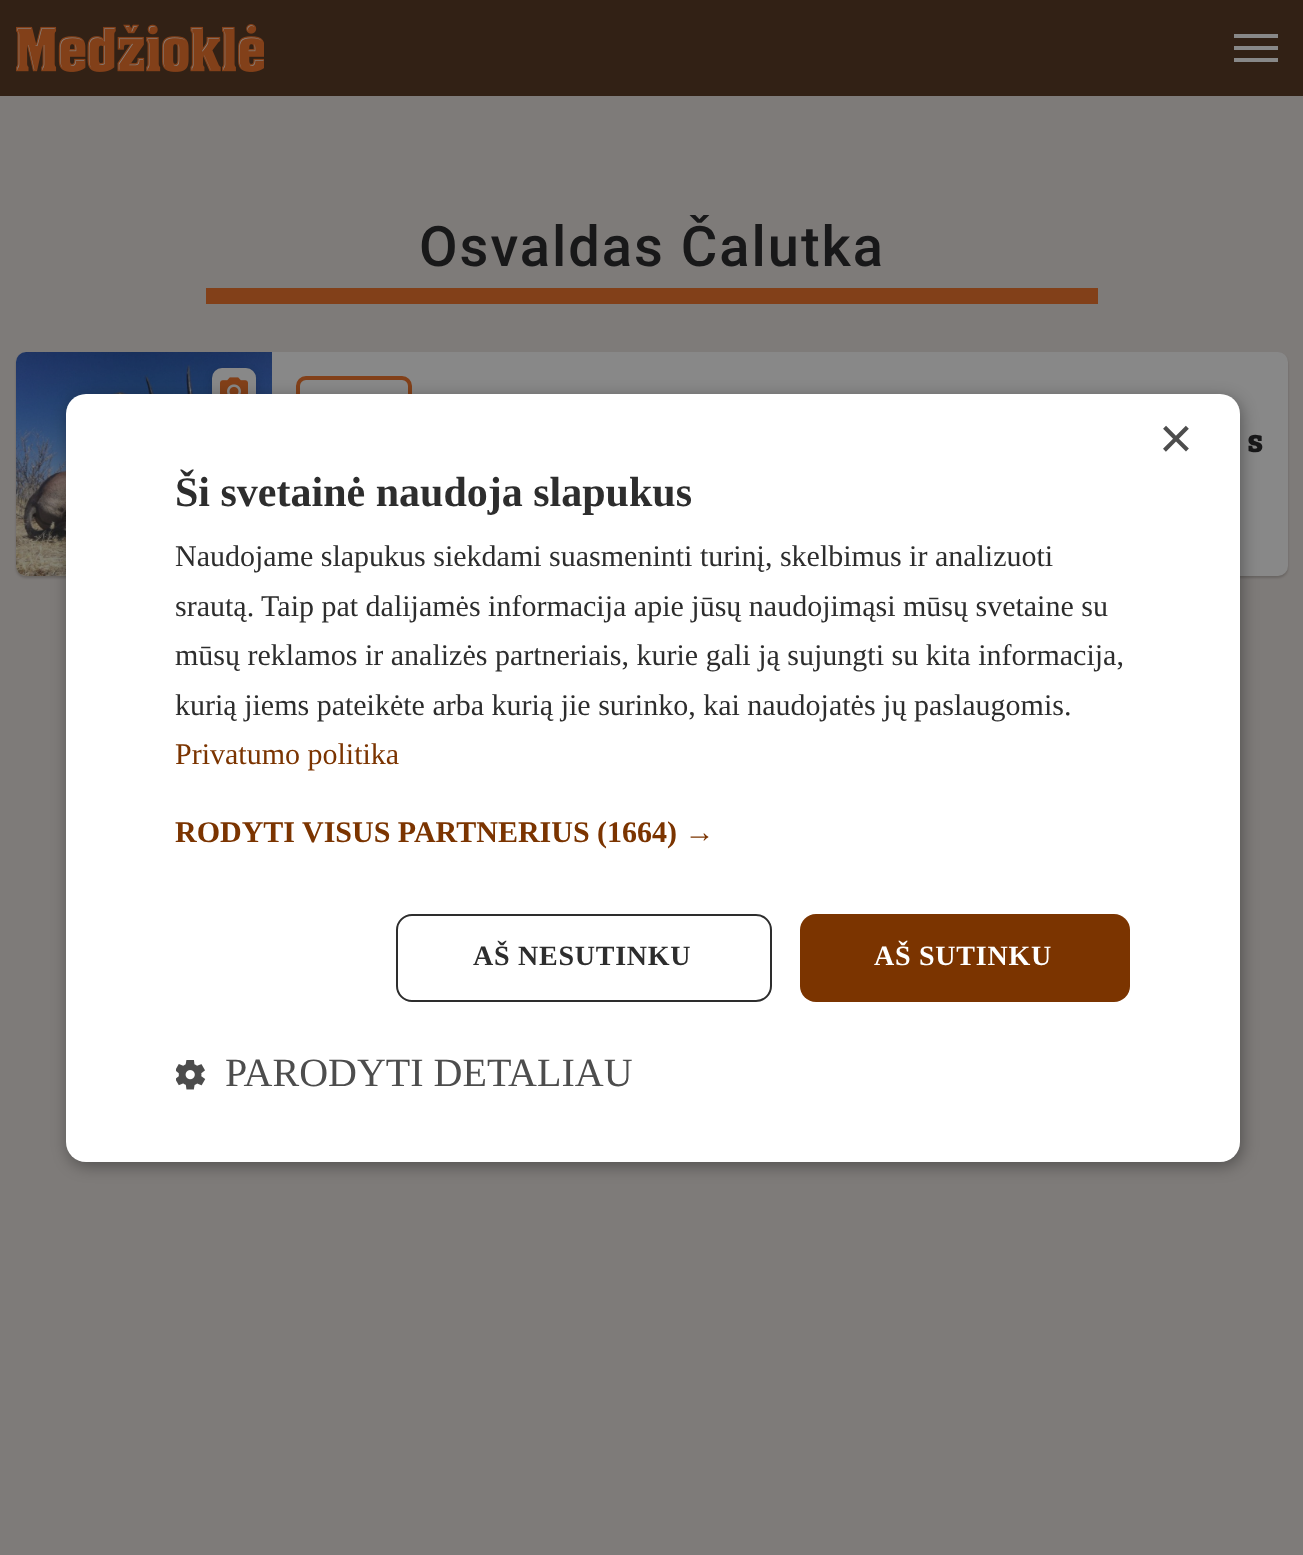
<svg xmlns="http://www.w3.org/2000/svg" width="1303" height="1555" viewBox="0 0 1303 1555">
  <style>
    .t1 { font: 500 56px Roboto; letter-spacing: 2px; fill: #181819; }
    .t2 { font: 900 32px Roboto Slab; fill: #181819; }
    .t3 { font: 58px Liberation Sans; fill: #4d4d4d; }
    .t4 { font: bold 42px Liberation Serif; fill: #2d2d2d; }
    .t5 { font: 30px Liberation Serif; fill: #2d2d2d; }
    .t6 { font: 30px Liberation Serif; fill: #7b3400; }
    .t7 { font: bold 30px Liberation Serif; fill: #7b3400; }
    .t8 { font: bold 28px Liberation Serif; letter-spacing: 0.75px; fill: #2d2d2d; }
    .t9 { font: bold 28px Liberation Serif; letter-spacing: 0.75px; fill: #fff; }
    .t10 { font: 40px Liberation Serif; fill: #4d4d4d; }
  </style>
  <rect width="100%" height="100%" fill="#7e7b79"/>
  <rect x="0" y="0" width="1303" height="96" fill="#322115"/>
  <image x="16" y="24" width="248" height="48" href="images/1.png"/>
  <path d="M1234 62H1278V58H1234ZM1234 50H1278V46H1234ZM1234 34V38H1278V34Z" fill="#888"/>
  <rect x="206" y="288" width="892" height="16" fill="#824019"/>
  <text x="419" y="266" class="t1">Osvaldas Čalutka</text>
  <rect x="16" y="354" width="1272" height="224" rx="10" fill="#2d242140" filter="blur(1px)"/>
  <rect x="16" y="352" width="1272" height="224" rx="10" fill="#888"/>
  <image x="16" y="352" width="256" height="224" href="images/2.png"/>
  <rect x="212" y="372" width="44" height="44" rx="10" fill="#09090933" filter="blur(4px)"/>
  <rect x="212" y="368" width="44" height="44" rx="10" fill="#888"/>
  <image x="220" y="377" width="28" height="17" href="images/3.png"/>
  <rect x="298" y="378" width="112" height="32" rx="8" fill="none" stroke="#824019" stroke-width="4"/>
  <text x="1247" y="452" class="t2">s</text>
  <rect x="68" y="398" width="1174" height="768" rx="20" fill="#00000059" filter="blur(8px)"/>
  <rect x="66" y="394" width="1174" height="768" rx="20" fill="#fff"/>
  <text x="1159" y="458" class="t3">×</text>
  <text x="175" y="506" class="t4">Ši svetainė naudoja slapukus</text>
  <text x="175" y="566" class="t5">Naudojame slapukus siekdami suasmeninti turinį, skelbimus ir analizuoti</text>
  <text x="175" y="616" class="t5">srautą. Taip pat dalijamės informacija apie jūsų naudojimąsi mūsų svetaine su</text>
  <text x="175" y="665" class="t5">mūsų reklamos ir analizės partneriais, kurie gali ją sujungti su kita informacija,</text>
  <text x="175" y="715" class="t5">kurią jiems pateikėte arba kurią jie surinko, kai naudojatės jų paslaugomis.</text>
  <text x="175" y="764" class="t6">Privatumo politika</text>
  <text x="175" y="842" class="t7">RODYTI VISUS PARTNERIUS (1664) →</text>
  <rect x="397" y="915" width="374" height="86" rx="15" fill="none" stroke="#2d2d2d" stroke-width="2"/>
  <text x="473" y="965" class="t8">AŠ NESUTINKU</text>
  <rect x="800" y="914" width="330" height="88" rx="16" fill="#7b3400"/>
  <text x="874" y="965" class="t9">AŠ SUTINKU</text>
  <image x="176" y="1060" width="30" height="30" href="images/4.png"/>
  <text x="225" y="1086" class="t10">PARODYTI DETALIAU</text>
</svg>
